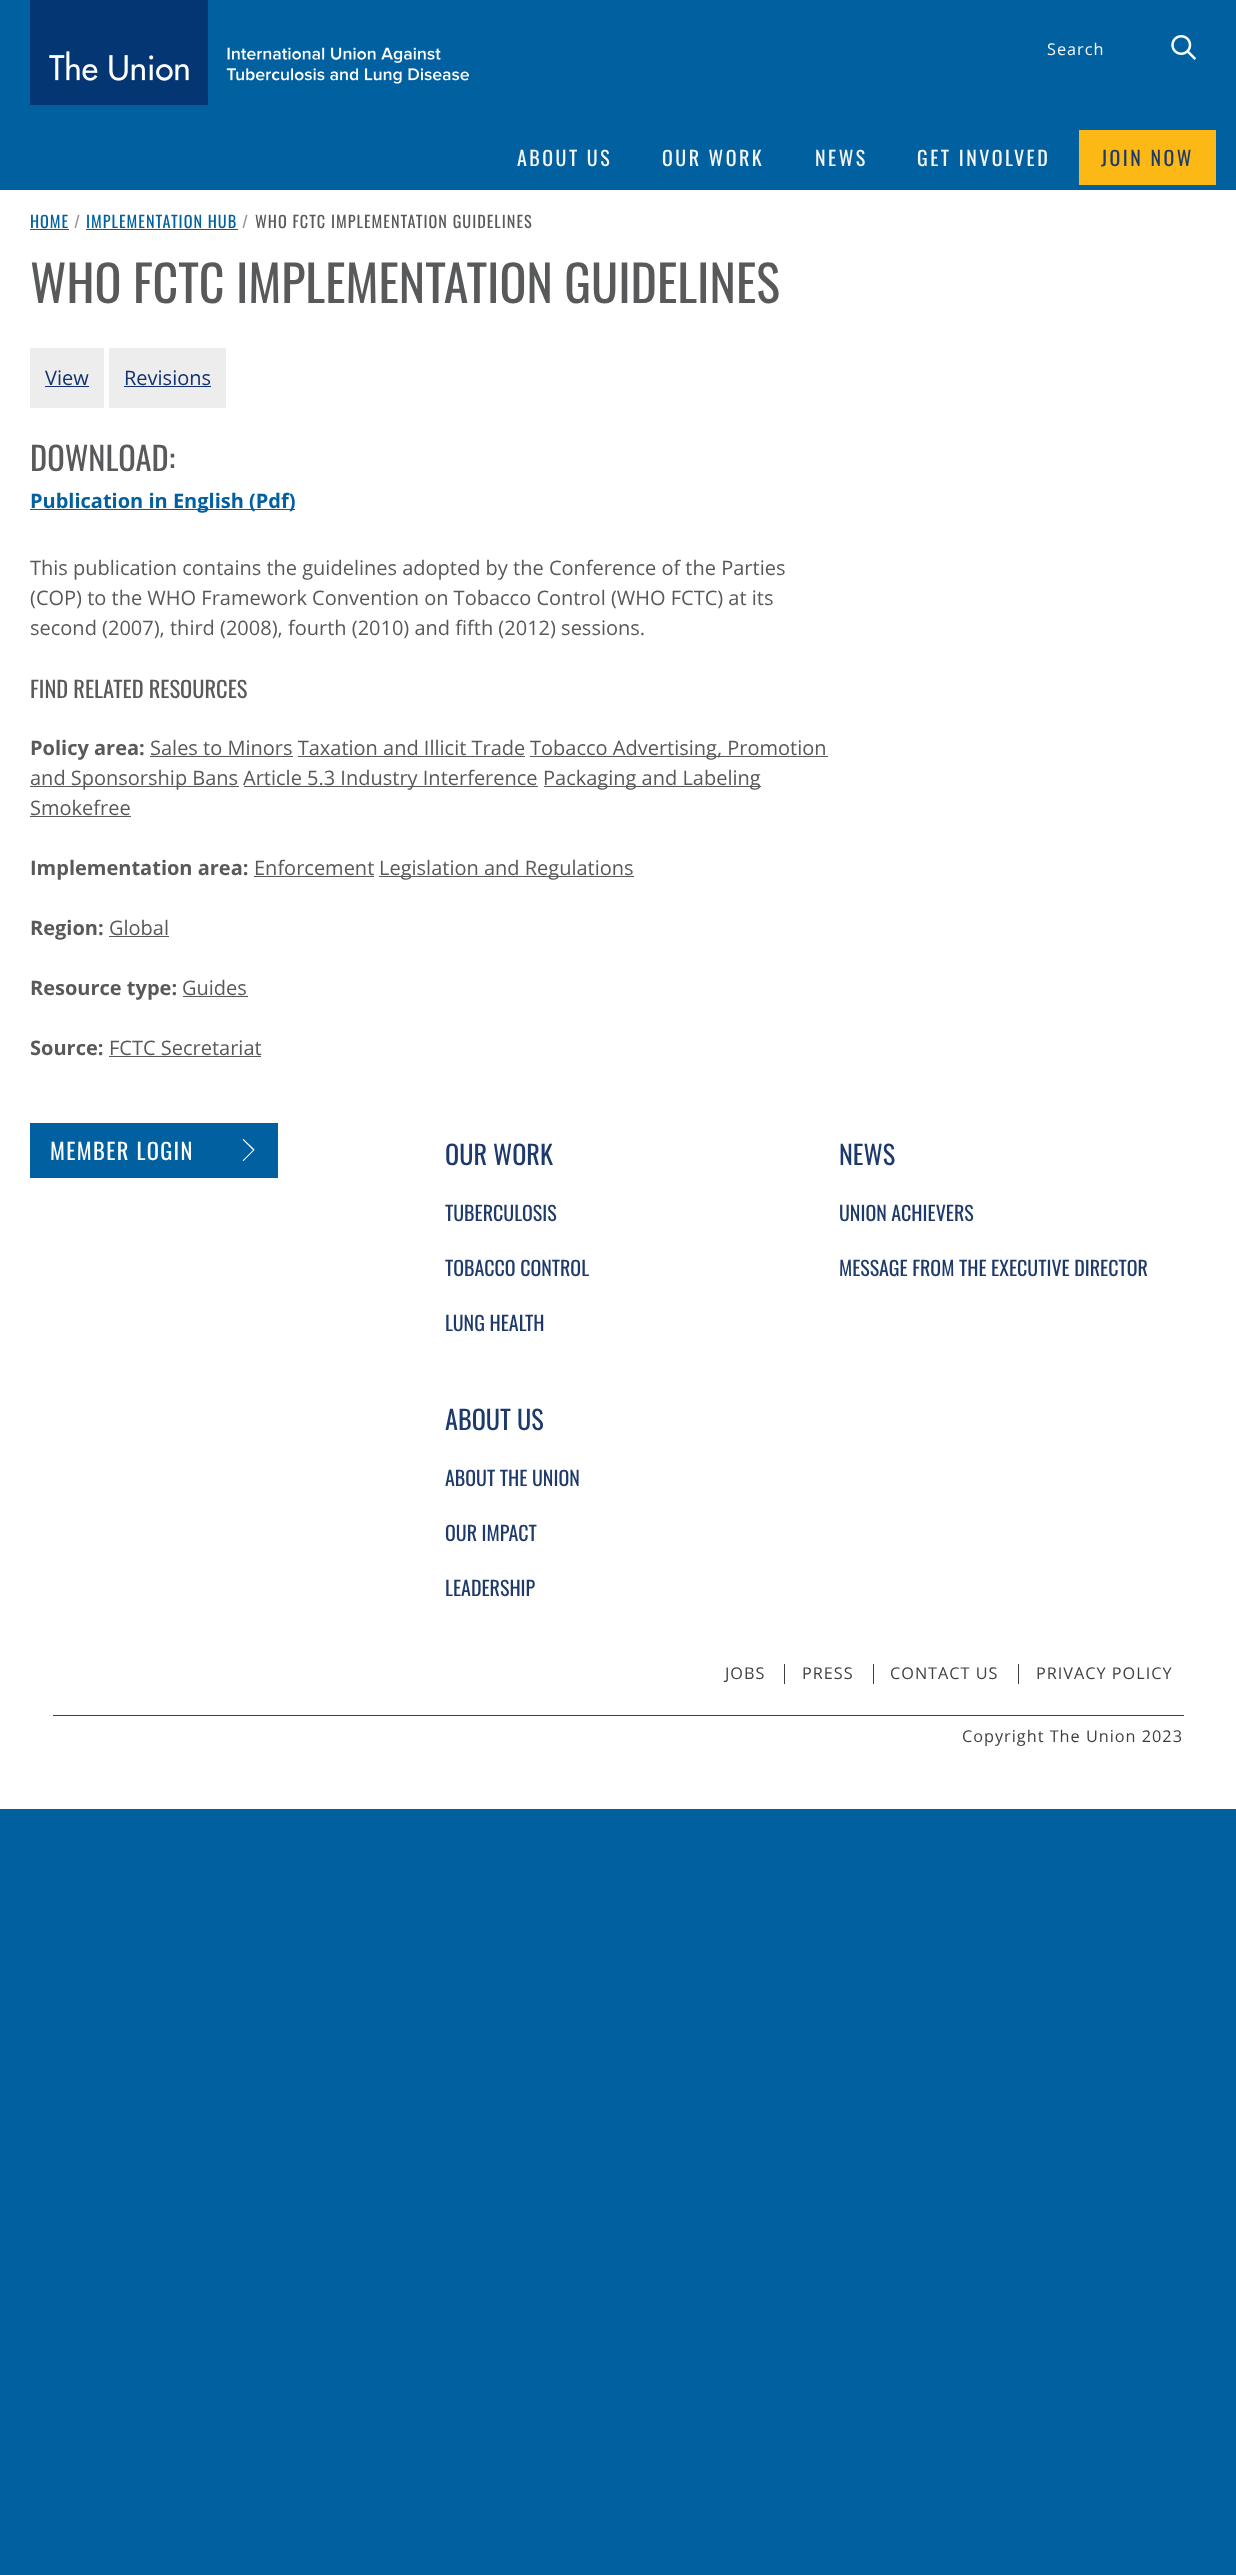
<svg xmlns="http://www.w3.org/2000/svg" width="1236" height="2575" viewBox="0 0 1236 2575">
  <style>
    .t1 { font: 16.25px Open Sans; letter-spacing: 1px; fill: #f7f7f7; }
    .t2 { font: 20px Oswald; letter-spacing: 2.5px; fill: #f7f7f7; }
    .t3 { font: 20px Oswald; letter-spacing: 2.5px; fill: #1e3a6c; }
    .t4 { font: 16.25px Oswald; letter-spacing: 1px; fill: #0060a0; }
    .t5 { font: 16.25px Oswald; letter-spacing: 1px; fill: #939597; }
    .t6 { font: 16.25px Oswald; letter-spacing: 1px; fill: #58595b; }
    .t7 { font: 50px Oswald; fill: #58595b; }
    .t8 { font: 20px Open Sans; fill: #12316d; }
    .t9 { font: 32.5px Oswald; fill: #58595b; }
    .t10 { font: bold 20px Open Sans; fill: #0060a0; }
    .t11 { font: 20px Open Sans; fill: #58595b; }
    .t12 { font: 22.5px Oswald; fill: #58595b; }
    .t13 { font: bold 20px Open Sans; fill: #58595b; }
    .t14 { font: 22.5px Oswald; letter-spacing: 1.4px; fill: #fff; }
    .t15 { font: 16.25px Open Sans; letter-spacing: 1px; fill: #3f3f3f; }
    .t16 { font: 26.25px Oswald; fill: #1e3a6c; }
    .t17 { font: 20px Oswald; fill: #1e3a6c; }
  </style>
  <rect width="100%" height="100%" fill="#0060a0"/>
  <rect x="0" y="190" width="1236" height="1619" fill="#fff"/>
  <image x="30" y="0" width="439" height="105" href="images/1.png"/>
  <text x="1047" y="55" class="t1">Search</text>
  <image x="1171" y="35" width="25" height="25" href="images/2.png"/>
  <text x="517" y="166" class="t2">ABOUT US</text>
  <text x="662" y="166" class="t2">OUR WORK</text>
  <text x="815" y="166" class="t2">NEWS</text>
  <text x="917" y="166" class="t2">GET INVOLVED</text>
  <rect x="1079" y="130" width="137" height="55" fill="#fcb814"/>
  <text x="1101" y="166" class="t3">JOIN NOW</text>
  <text x="30" y="228" class="t4">HOME</text>
  <rect x="30" y="229" width="39" height="1" fill="#0060a0"/>
  <text x="74" y="228" class="t5">/</text>
  <text x="86" y="228" class="t4">IMPLEMENTATION HUB</text>
  <rect x="86" y="229" width="152" height="1" fill="#0060a0"/>
  <text x="242" y="228" class="t5">/</text>
  <text x="255" y="228" class="t6">WHO FCTC IMPLEMENTATION GUIDELINES</text>
  <text x="30" y="303" class="t7">WHO FCTC IMPLEMENTATION GUIDELINES</text>
  <rect x="30" y="348" width="74" height="60" fill="#ededed"/>
  <text x="45" y="385" class="t8">View</text>
  <rect x="45" y="386" width="44" height="1" fill="#12316d"/>
  <rect x="109" y="348" width="117" height="60" fill="#ededed"/>
  <text x="124" y="385" class="t8">Revisions</text>
  <rect x="124" y="386" width="87" height="1" fill="#12316d"/>
  <text x="30" y="471" class="t9">DOWNLOAD:</text>
  <rect x="30" y="509" width="265" height="1" fill="#0060a0"/>
  <text x="30" y="508" class="t10">Publication in English (Pdf)</text>
  <text x="30" y="575" class="t11">This publication contains the guidelines adopted by the Conference of the Parties</text>
  <text x="30" y="605" class="t11">(COP) to the WHO Framework Convention on Tobacco Control (WHO FCTC) at its</text>
  <text x="30" y="635" class="t11">second (2007), third (2008), fourth (2010) and fifth (2012) sessions.</text>
  <text x="30" y="698" class="t12">FIND RELATED RESOURCES</text>
  <text x="30" y="755" class="t13">Policy area:</text>
  <text x="150" y="755" class="t11">Sales to Minors Taxation and Illicit Trade</text>
  <rect x="150" y="756" width="143" height="1" fill="#58595b"/>
  <rect x="530" y="756" width="298" height="1" fill="#58595b"/>
  <text x="530" y="755" class="t11">Tobacco Advertising, Promotion</text>
  <rect x="298" y="756" width="227" height="1" fill="#58595b"/>
  <rect x="30" y="786" width="209" height="1" fill="#58595b"/>
  <text x="30" y="785" class="t11">and Sponsorship Bans</text>
  <rect x="244" y="786" width="294" height="1" fill="#58595b"/>
  <text x="243" y="785" class="t11">Article 5.3 Industry Interference</text>
  <rect x="544" y="786" width="217" height="1" fill="#58595b"/>
  <text x="543" y="785" class="t11">Packaging and Labeling</text>
  <text x="30" y="815" class="t11">Smokefree</text>
  <rect x="30" y="816" width="101" height="1" fill="#58595b"/>
  <text x="30" y="875" class="t13">Implementation area:</text>
  <text x="254" y="875" class="t11">Enforcement</text>
  <rect x="254" y="876" width="120" height="1" fill="#58595b"/>
  <rect x="379" y="876" width="255" height="1" fill="#58595b"/>
  <text x="379" y="875" class="t11">Legislation and Regulations</text>
  <text x="30" y="935" class="t13">Region:</text>
  <text x="109" y="935" class="t11">Global</text>
  <rect x="109" y="936" width="60" height="1" fill="#58595b"/>
  <text x="30" y="995" class="t13">Resource type:</text>
  <text x="182" y="995" class="t11">Guides</text>
  <rect x="183" y="996" width="65" height="1" fill="#58595b"/>
  <text x="30" y="1055" class="t13">Source:</text>
  <text x="109" y="1055" class="t11">FCTC Secretariat</text>
  <rect x="109" y="1056" width="152" height="1" fill="#58595b"/>
  <rect x="30" y="1123" width="248" height="55" fill="#0060a0"/>
  <text x="50" y="1160" class="t14">MEMBER LOGIN</text>
  <path d="M254 1149L243.5 1139L242.5 1139.5L253 1150L242.5 1160.5L243.5 1161L254.5 1150Z" fill="#fff"/>
  <text x="725" y="1679" class="t15">JOBS</text>
  <rect x="784" y="1664" width="1" height="20" fill="#3f3f3f"/>
  <text x="802" y="1679" class="t15">PRESS</text>
  <rect x="873" y="1664" width="1" height="20" fill="#3f3f3f"/>
  <text x="890" y="1679" class="t15">CONTACT US</text>
  <rect x="1018" y="1664" width="1" height="20" fill="#3f3f3f"/>
  <text x="1036" y="1679" class="t15">PRIVACY POLICY</text>
  <rect x="53" y="1715" width="1131" height="1" fill="#3f3f3f"/>
  <text x="962" y="1742" class="t15">Copyright The Union 2023</text>
  <text x="445" y="1165" class="t16">OUR WORK</text>
  <text x="445" y="1221" class="t17">TUBERCULOSIS</text>
  <text x="445" y="1276" class="t17">TOBACCO CONTROL</text>
  <text x="445" y="1331" class="t17">LUNG HEALTH</text>
  <text x="839" y="1165" class="t16">NEWS</text>
  <text x="839" y="1221" class="t17">UNION ACHIEVERS</text>
  <text x="839" y="1276" class="t17">MESSAGE FROM THE EXECUTIVE DIRECTOR</text>
  <text x="445" y="1430" class="t16">ABOUT US</text>
  <text x="445" y="1486" class="t17">ABOUT THE UNION</text>
  <text x="445" y="1541" class="t17">OUR IMPACT</text>
  <text x="445" y="1596" class="t17">LEADERSHIP</text>
</svg>
